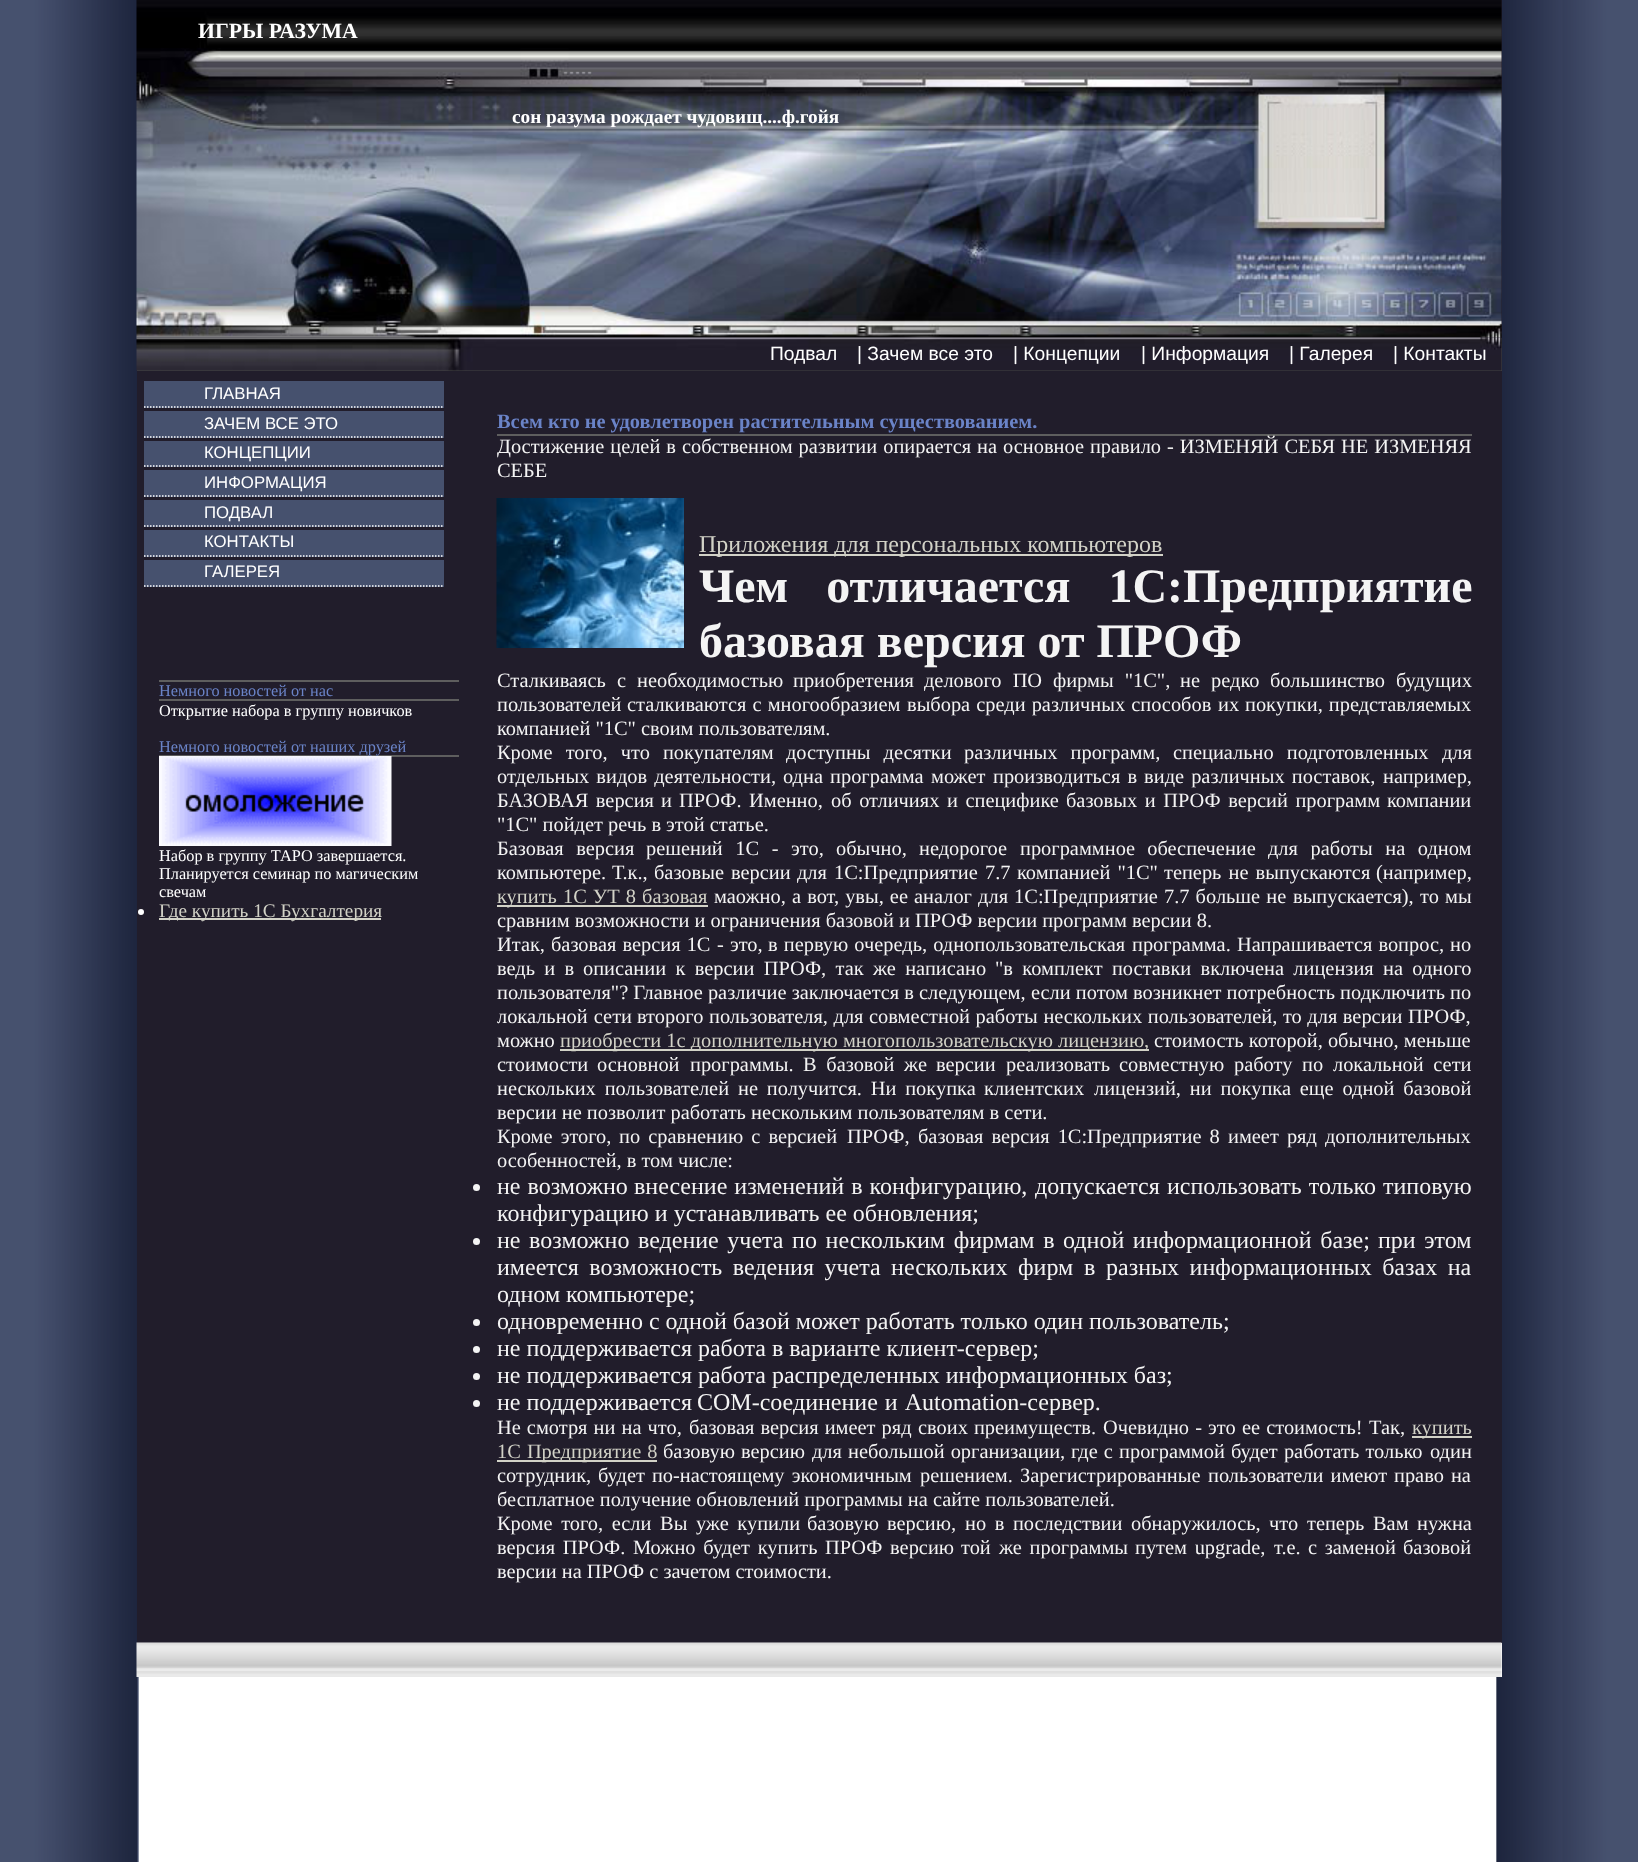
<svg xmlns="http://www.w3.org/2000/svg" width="1638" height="1862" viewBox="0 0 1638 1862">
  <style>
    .t1 { font: bold 21.75px Liberation Serif; fill: #fff; }
    .t2 { font: bold 19.25px Liberation Serif; fill: #fff; }
    .t3 { font: 19.25px Liberation Sans; fill: #fff; }
    .t4 { font: 16.75px Liberation Sans; fill: #fff; }
    .t5 { font: bold 20.4px Liberation Serif; fill: #6a83c7; }
    .t6 { font: 20.4px Liberation Serif; fill: #f4f4f4; }
    .t7 { font: 24px Liberation Serif; fill: #d2d2c7; }
    .t8 { font: bold 48px Liberation Serif; fill: #f4f4f4; }
    .t9 { font: 20.4px Liberation Serif; fill: #d2d2c7; }
    .t10 { font: 24px Liberation Serif; fill: #f4f4f4; }
    .t11 { font: 16.3px Liberation Serif; fill: #6a83c7; }
    .t12 { font: 16.3px Liberation Serif; fill: #fff; }
    .t13 { font: 19.25px Liberation Serif; fill: #d2d2c7; }
  </style>
  <rect width="100%" height="100%" fill="#fff"/>
  <image x="0" y="0" width="1638" height="1862" href="images/1.png"/>
  <rect x="137" y="0" width="1365" height="1643" fill="#211d2b"/>
  <image x="136" y="0" width="1366" height="338" href="images/2.png"/>
  <text x="198" y="38" class="t1">ИГРЫ РАЗУМА</text>
  <text x="512" y="123" class="t2">сон разума рождает чудовищ....ф.гойя</text>
  <rect x="137" y="338" width="1365" height="33" fill="#444"/>
  <image x="136" y="337" width="1366" height="34" href="images/3.png"/>
  <text x="770" y="360" class="t3">Подвал</text>
  <text x="857" y="360" class="t3">| Зачем все это</text>
  <text x="1013" y="360" class="t3">| Концепции</text>
  <text x="1141" y="360" class="t3">| Информация</text>
  <text x="1289" y="360" class="t3">| Галерея</text>
  <text x="1393" y="360" class="t3">| Контакты</text>
  <rect x="144" y="381" width="300" height="27" fill="#46516e"/>
  <path d="M144 407H444" fill="none" stroke="#fff" stroke-width="1.5" stroke-dasharray="1.5 1.5"/>
  <text x="204" y="399" class="t4">ГЛАВНАЯ</text>
  <rect x="144" y="411" width="300" height="27" fill="#46516e"/>
  <path d="M144 437H444" fill="none" stroke="#fff" stroke-width="1.5" stroke-dasharray="1.5 1.5"/>
  <text x="204" y="429" class="t4">ЗАЧЕМ ВСЕ ЭТО</text>
  <rect x="144" y="441" width="300" height="26" fill="#46516e"/>
  <path d="M144 466H444" fill="none" stroke="#fff" stroke-width="1.5" stroke-dasharray="1.5 1.5"/>
  <text x="204" y="458" class="t4">КОНЦЕПЦИИ</text>
  <rect x="144" y="470" width="300" height="27" fill="#46516e"/>
  <path d="M144 496H444" fill="none" stroke="#fff" stroke-width="1.5" stroke-dasharray="1.5 1.5"/>
  <text x="204" y="488" class="t4">ИНФОРМАЦИЯ</text>
  <rect x="144" y="500" width="300" height="27" fill="#46516e"/>
  <path d="M144 526H444" fill="none" stroke="#fff" stroke-width="1.5" stroke-dasharray="1.5 1.5"/>
  <text x="204" y="518" class="t4">ПОДВАЛ</text>
  <rect x="144" y="530" width="300" height="27" fill="#46516e"/>
  <path d="M144 556H444" fill="none" stroke="#fff" stroke-width="1.5" stroke-dasharray="1.5 1.5"/>
  <text x="204" y="547" class="t4">КОНТАКТЫ</text>
  <rect x="144" y="560" width="300" height="27" fill="#46516e"/>
  <path d="M144 586H444" fill="none" stroke="#fff" stroke-width="1.5" stroke-dasharray="1.5 1.5"/>
  <text x="204" y="577" class="t4">ГАЛЕРЕЯ</text>
  <rect x="497" y="434" width="975" height="2" fill="#5e5e5e"/>
  <text x="497" y="428" class="t5">Всем кто не удовлетворен растительным существованием.</text>
  <text x="497" y="453" word-spacing="0.9" class="t6">Достижение целей в собственном развитии опирается на основное правило - ИЗМЕНЯЙ СЕБЯ НЕ ИЗМЕНЯЯ</text>
  <text x="497" y="477" class="t6">СЕБЕ</text>
  <image x="496" y="498" width="188" height="150" href="images/4.png"/>
  <rect x="699" y="554" width="464" height="2" fill="#d2d2c7"/>
  <text x="699" y="552" class="t7">Приложения для персональных компьютеров</text>
  <text x="699" y="602" word-spacing="26" class="t8">Чем отличается 1С:Предприятие</text>
  <text x="699" y="657" class="t8">базовая версия от ПРОФ</text>
  <text x="497" y="687" word-spacing="6" class="t6">Сталкиваясь с необходимостью</text>
  <text x="793" y="687" class="t6">приобретения</text>
  <text x="924" y="687" word-spacing="6" class="t6">делового ПО</text>
  <text x="1053" y="687" word-spacing="6" class="t6">фирмы "1С",</text>
  <text x="1180" y="687" word-spacing="6" class="t6">не редко</text>
  <text x="1270" y="687" class="t6">большинство</text>
  <text x="1396" y="687" class="t6">будущих</text>
  <text x="497" y="711" class="t6">пользователей</text>
  <text x="627" y="711" word-spacing="1" class="t6">сталкиваются с многообразием</text>
  <text x="907" y="711" word-spacing="1" class="t6">выбора среди различных способов</text>
  <text x="1218" y="711" class="t6">их</text>
  <text x="1245" y="711" word-spacing="1" class="t6">покупки, представляемых</text>
  <text x="497" y="735" class="t6">компанией "1С" своим пользователям.</text>
  <text x="497" y="759" word-spacing="8" class="t6">Кроме того, что покупателям</text>
  <text x="786" y="759" word-spacing="8" class="t6">доступны десятки</text>
  <text x="964" y="759" word-spacing="8" class="t6">различных программ,</text>
  <text x="1173" y="759" word-spacing="8" class="t6">специально подготовленных</text>
  <text x="1442" y="759" class="t6">для</text>
  <text x="497" y="783" word-spacing="2" class="t6">отдельных видов деятельности,</text>
  <text x="783" y="783" word-spacing="2" class="t6">одна программа</text>
  <text x="931" y="783" class="t6">может</text>
  <text x="993" y="783" word-spacing="2" class="t6">производиться в виде различных поставок,</text>
  <text x="1383" y="783" class="t6">например,</text>
  <text x="497" y="807" word-spacing="2.5" class="t6">БАЗОВАЯ версия</text>
  <text x="661" y="807" class="t6">и</text>
  <text x="679" y="807" class="t6">ПРОФ.</text>
  <text x="749" y="807" class="t6">Именно,</text>
  <text x="831" y="807" word-spacing="2.5" class="t6">об отличиях и специфике</text>
  <text x="1066" y="807" word-spacing="2.5" class="t6">базовых и ПРОФ версий программ</text>
  <text x="1387" y="807" class="t6">компании</text>
  <text x="497" y="831" class="t6">"1С" пойдет речь в этой статье.</text>
  <text x="497" y="855" word-spacing="7.5" class="t6">Базовая версия</text>
  <text x="646" y="855" word-spacing="7.5" class="t6">решений 1С - это,</text>
  <text x="836" y="855" class="t6">обычно,</text>
  <text x="919" y="855" class="t6">недорогое</text>
  <text x="1020" y="855" word-spacing="7" class="t6">программное обеспечение</text>
  <text x="1268" y="855" word-spacing="7.5" class="t6">для работы на одном</text>
  <text x="497" y="879" class="t6">компьютере.</text>
  <text x="612" y="879" class="t6">Т.к.,</text>
  <text x="654" y="879" class="t6">базовые</text>
  <text x="731" y="879" class="t6">версии</text>
  <text x="797" y="879" word-spacing="2" class="t6">для 1С:Предприятие 7.7</text>
  <text x="1017" y="879" word-spacing="2" class="t6">компанией "1С"</text>
  <text x="1164" y="879" word-spacing="2" class="t6">теперь не выпускаются</text>
  <text x="1376" y="879" class="t6">(например,</text>
  <rect x="497" y="905" width="211" height="2" fill="#d2d2c7"/>
  <text x="497" y="903" word-spacing="1" class="t9">купить 1С УТ 8 базовая</text>
  <text x="714" y="903" class="t6">маожно,</text>
  <text x="792" y="903" word-spacing="1" class="t6">а вот, увы, ее аналог для 1С:Предприятие 7.7 больше не</text>
  <text x="1293" y="903" class="t6">выпускается),</text>
  <text x="1420" y="903" class="t6">то</text>
  <text x="1445" y="903" class="t6">мы</text>
  <text x="497" y="927" class="t6">сравним возможности и ограничения базовой и ПРОФ версии программ версии 8.</text>
  <text x="497" y="951" class="t6">Итак,</text>
  <text x="551" y="951" word-spacing="1" class="t6">базовая версия 1С</text>
  <text x="717" y="951" word-spacing="1" class="t6">- это,</text>
  <text x="768" y="951" word-spacing="1" class="t6">в первую очередь, однопользовательская</text>
  <text x="1132" y="951" class="t6">программа.</text>
  <text x="1237" y="951" word-spacing="1" class="t6">Напрашивается вопрос,</text>
  <text x="1450" y="951" class="t6">но</text>
  <text x="497" y="975" word-spacing="4.25" class="t6">ведь и в</text>
  <text x="583" y="975" word-spacing="4.25" class="t6">описании к версии ПРОФ, так же написано</text>
  <text x="995" y="975" word-spacing="4.25" class="t6">"в комплект поставки включена лицензия на одного</text>
  <text x="497" y="999" class="t6">пользователя"? Главное различие заключается в следующем,</text>
  <text x="1031" y="999" class="t6">если потом возникнет потребность подключить по</text>
  <text x="497" y="1023" word-spacing="1" class="t6">локальной сети</text>
  <text x="637" y="1023" word-spacing="0.5" class="t6">второго пользователя, для совместной работы нескольких пользователей, то для версии ПРОФ,</text>
  <text x="497" y="1047" class="t6">можно</text>
  <rect x="560" y="1049" width="589" height="2" fill="#d2d2c7"/>
  <text x="560" y="1047" class="t9">приобрести 1c дополнительную многопользовательскую лицензию,</text>
  <text x="1154" y="1047" class="t6">стоимость которой, обычно, меньше</text>
  <text x="497" y="1071" class="t6">стоимости</text>
  <text x="597" y="1071" class="t6">основной</text>
  <text x="690" y="1071" word-spacing="4.5" class="t6">программы. В базовой же</text>
  <text x="936" y="1071" class="t6">версии</text>
  <text x="1006" y="1071" class="t6">реализовать</text>
  <text x="1119" y="1071" class="t6">совместную</text>
  <text x="1234" y="1071" word-spacing="4.5" class="t6">работу по</text>
  <text x="1333" y="1071" word-spacing="4.5" class="t6">локальной сети</text>
  <text x="497" y="1095" word-spacing="3.75" class="t6">нескольких пользователей</text>
  <text x="738" y="1095" word-spacing="3.75" class="t6">не получится. Ни покупка</text>
  <text x="984" y="1095" class="t6">клиентских</text>
  <text x="1094" y="1095" word-spacing="3.75" class="t6">лицензий, ни покупка еще одной базовой</text>
  <text x="497" y="1119" class="t6">версии не позволит работать нескольким пользователям в сети.</text>
  <text x="497" y="1143" word-spacing="3" class="t6">Кроме этого,</text>
  <text x="619" y="1143" word-spacing="3" class="t6">по сравнению с версией</text>
  <text x="847" y="1143" class="t6">ПРОФ,</text>
  <text x="918" y="1143" word-spacing="3" class="t6">базовая версия 1С:Предприятие 8</text>
  <text x="1228" y="1143" word-spacing="3" class="t6">имеет ряд дополнительных</text>
  <text x="497" y="1167" class="t6">особенностей, в том числе:</text>
  <circle cx="476.5" cy="1187.5" r="3.5" fill="#f4f4f4"/>
  <text x="497" y="1194" word-spacing="1" class="t10">не возможно</text>
  <text x="634" y="1194" word-spacing="1" class="t10">внесение изменений в конфигурацию,</text>
  <text x="1035" y="1194" class="t10">допускается</text>
  <text x="1167" y="1194" word-spacing="1" class="t10">использовать только типовую</text>
  <text x="497" y="1221" class="t10">конфигурацию и устанавливать ее обновления;</text>
  <circle cx="476.5" cy="1241.5" r="3.5" fill="#f4f4f4"/>
  <text x="497" y="1248" word-spacing="2.6" class="t10">не возможно ведение учета по нескольким фирмам в одной информационной базе;</text>
  <text x="1378" y="1248" word-spacing="2.6" class="t10">при этом</text>
  <text x="497" y="1275" word-spacing="4.5" class="t10">имеется возможность ведения учета нескольких</text>
  <text x="1018" y="1275" class="t10">фирм</text>
  <text x="1084" y="1275" class="t10">в</text>
  <text x="1106" y="1275" word-spacing="4.5" class="t10">разных информационных базах на</text>
  <text x="497" y="1302" class="t10">одном компьютере;</text>
  <circle cx="476.5" cy="1322.5" r="3.5" fill="#f4f4f4"/>
  <text x="497" y="1329" class="t10">одновременно с одной базой может работать только один пользователь;</text>
  <circle cx="476.5" cy="1349.5" r="3.5" fill="#f4f4f4"/>
  <text x="497" y="1356" class="t10">не поддерживается работа в варианте клиент-сервер;</text>
  <circle cx="476.5" cy="1376.5" r="3.5" fill="#f4f4f4"/>
  <text x="497" y="1383" class="t10">не поддерживается работа распределенных информационных баз;</text>
  <circle cx="476.5" cy="1403.5" r="3.5" fill="#f4f4f4"/>
  <text x="497" y="1410" class="t10">не поддерживается</text>
  <text x="697" y="1410" word-spacing="1" class="t10">COM-соединение и Automation-сервер.</text>
  <text x="497" y="1434" word-spacing="1" class="t6">Не смотря ни на что,</text>
  <text x="689" y="1434" word-spacing="1" class="t6">базовая версия имеет ряд</text>
  <text x="918" y="1434" word-spacing="1" class="t6">своих преимуществ.</text>
  <text x="1103" y="1434" word-spacing="1" class="t6">Очевидно -</text>
  <text x="1208" y="1434" class="t6">это</text>
  <text x="1242" y="1434" word-spacing="1" class="t6">ее стоимость!</text>
  <text x="1369" y="1434" class="t6">Так,</text>
  <rect x="1412" y="1436" width="60" height="2" fill="#d2d2c7"/>
  <text x="1412" y="1434" class="t9">купить</text>
  <rect x="497" y="1460" width="160" height="2" fill="#d2d2c7"/>
  <text x="497" y="1458" word-spacing="1" class="t9">1С Предприятие 8</text>
  <text x="663" y="1458" word-spacing="1" class="t6">базовую версию</text>
  <text x="812" y="1458" class="t6">для</text>
  <text x="848" y="1458" word-spacing="1" class="t6">небольшой организации,</text>
  <text x="1071" y="1458" word-spacing="1" class="t6">где с программой будет работать только</text>
  <text x="1430" y="1458" class="t6">один</text>
  <text x="497" y="1482" class="t6">сотрудник,</text>
  <text x="598" y="1482" word-spacing="2" class="t6">будет по-настоящему экономичным</text>
  <text x="920" y="1482" class="t6">решением.</text>
  <text x="1020" y="1482" class="t6">Зарегистрированные</text>
  <text x="1208" y="1482" word-spacing="2" class="t6">пользователи имеют</text>
  <text x="1394" y="1482" word-spacing="2" class="t6">право на</text>
  <text x="497" y="1506" class="t6">бесплатное получение обновлений программы на сайте пользователей.</text>
  <text x="497" y="1530" word-spacing="3.5" class="t6">Кроме того, если Вы уже купили</text>
  <text x="807" y="1530" word-spacing="3" class="t6">базовую версию,</text>
  <text x="965" y="1530" word-spacing="3.5" class="t6">но в последствии</text>
  <text x="1131" y="1530" class="t6">обнаружилось,</text>
  <text x="1269" y="1530" class="t6">что</text>
  <text x="1307" y="1530" word-spacing="3.5" class="t6">теперь Вам</text>
  <text x="1417" y="1530" class="t6">нужна</text>
  <text x="497" y="1554" word-spacing="2.6" class="t6">версия ПРОФ. Можно будет купить</text>
  <text x="825" y="1554" word-spacing="2.6" class="t6">ПРОФ версию</text>
  <text x="961" y="1554" class="t6">той</text>
  <text x="999" y="1554" word-spacing="2.6" class="t6">же программы</text>
  <text x="1135" y="1554" word-spacing="2.6" class="t6">путем upgrade,</text>
  <text x="1274" y="1554" class="t6">т.е.</text>
  <text x="1308" y="1554" word-spacing="2.6" class="t6">с заменой</text>
  <text x="1403" y="1554" class="t6">базовой</text>
  <text x="497" y="1578" class="t6">версии на ПРОФ с зачетом стоимости.</text>
  <rect x="159" y="680" width="300" height="2" fill="#5e5e5e"/>
  <rect x="159" y="699" width="300" height="2" fill="#5e5e5e"/>
  <text x="159" y="696" class="t11">Немного новостей от нас</text>
  <text x="159" y="716" class="t12">Открытие набора в группу новичков</text>
  <rect x="159" y="755" width="300" height="2" fill="#5e5e5e"/>
  <text x="159" y="752" class="t11">Немного новостей от наших друзей</text>
  <image x="159" y="756" width="233" height="90" href="images/5.png"/>
  <text x="159" y="861" class="t12">Набор в группу ТАРО завершается.</text>
  <text x="159" y="879" class="t12">Планируется семинар по магическим</text>
  <text x="159" y="897" class="t12">свечам</text>
  <circle cx="141" cy="912" r="3" fill="#fff"/>
  <rect x="159" y="918" width="222" height="2" fill="#d2d2c7"/>
  <text x="159" y="917" class="t13">Где купить 1С Бухгалтерия</text>
  <rect x="1501" y="1643" width="1" height="34" fill="#fff"/>
  <image x="136" y="1642" width="1366" height="35" href="images/6.png"/>
</svg>
